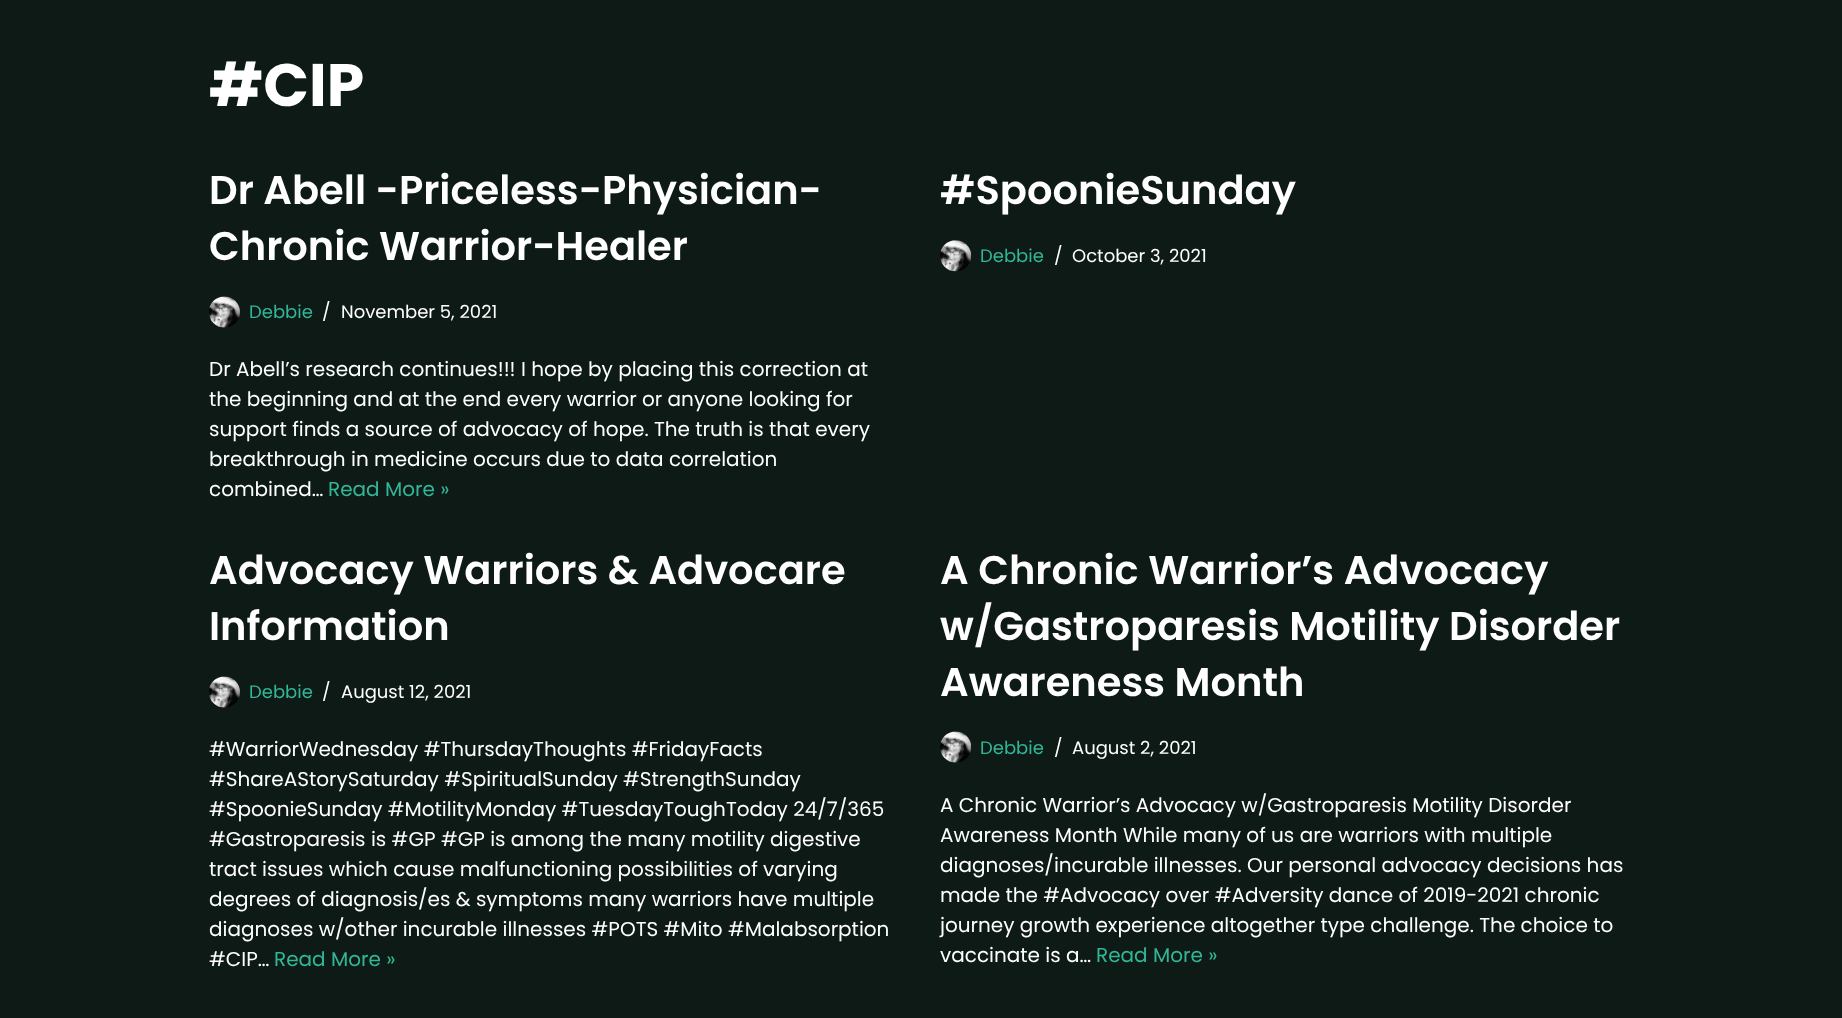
<svg xmlns="http://www.w3.org/2000/svg" width="1842" height="1018" viewBox="0 0 1842 1018">
  <style>
    .t1 { font: bold 60px Poppins; fill: #fff; }
    .t2 { font: 600 40px Poppins; fill: #fff; }
    .t3 { font: 18px Poppins; fill: #32b698; }
    .t4 { font: 18px Poppins; fill: #fff; }
    .t5 { font: 20px Poppins; fill: #fff; }
    .t6 { font: 20px Poppins; fill: #32b698; }
  </style>
  <rect width="100%" height="100%" fill="#0e1a16"/>
  <text x="209" y="106" class="t1">#CIP</text>
  <text x="209" y="204" class="t2">Dr Abell -Priceless-Physician-</text>
  <text x="209" y="260" class="t2">Chronic Warrior-Healer</text>
  <image x="209" y="296" width="31" height="32" href="images/1.png"/>
  <text x="249" y="318" class="t3">Debbie</text>
  <text x="322" y="318" class="t4">/</text>
  <text x="341" y="318" class="t4">November 5, 2021</text>
  <text x="209" y="376" class="t5">Dr Abell’s research continues!!! I hope by placing this correction at</text>
  <text x="209" y="406" class="t5">the beginning and at the end every warrior or anyone looking for</text>
  <text x="209" y="436" class="t5">support finds a source of advocacy of hope. The truth is that every</text>
  <text x="209" y="466" class="t5">breakthrough in medicine occurs due to data correlation</text>
  <text x="209" y="496" class="t5">combined…</text>
  <text x="328" y="496" class="t6">Read More »</text>
  <text x="940" y="204" class="t2">#SpoonieSunday</text>
  <image x="940" y="240" width="32" height="32" href="images/2.png"/>
  <text x="980" y="262" class="t3">Debbie</text>
  <text x="1054" y="262" class="t4">/</text>
  <text x="1072" y="262" class="t4">October 3, 2021</text>
  <text x="209" y="584" class="t2">Advocacy Warriors &amp; Advocare</text>
  <text x="209" y="640" class="t2">Information</text>
  <image x="209" y="676" width="31" height="32" href="images/1.png"/>
  <text x="249" y="698" class="t3">Debbie</text>
  <text x="322" y="698" class="t4">/</text>
  <text x="341" y="698" class="t4">August 12, 2021</text>
  <text x="209" y="756" class="t5">#WarriorWednesday #ThursdayThoughts #FridayFacts</text>
  <text x="209" y="786" class="t5">#ShareAStorySaturday #SpiritualSunday #StrengthSunday</text>
  <text x="209" y="816" class="t5">#SpoonieSunday #MotilityMonday #TuesdayToughToday 24/7/365</text>
  <text x="209" y="846" class="t5">#Gastroparesis is #GP #GP is among the many motility digestive</text>
  <text x="209" y="876" class="t5">tract issues which cause malfunctioning possibilities of varying</text>
  <text x="209" y="906" class="t5">degrees of diagnosis/es &amp; symptoms many warriors have multiple</text>
  <text x="209" y="936" class="t5">diagnoses w/other incurable illnesses #POTS #Mito #Malabsorption</text>
  <text x="209" y="966" class="t5">#CIP…</text>
  <text x="274" y="966" class="t6">Read More »</text>
  <text x="940" y="584" class="t2">A Chronic Warrior’s Advocacy</text>
  <text x="940" y="640" class="t2">w/Gastroparesis Motility Disorder</text>
  <text x="940" y="696" class="t2">Awareness Month</text>
  <image x="940" y="731" width="32" height="32" href="images/3.png"/>
  <text x="980" y="754" class="t3">Debbie</text>
  <text x="1054" y="754" class="t4">/</text>
  <text x="1072" y="754" class="t4">August 2, 2021</text>
  <text x="940" y="812" class="t5">A Chronic Warrior’s Advocacy w/Gastroparesis Motility Disorder</text>
  <text x="940" y="842" class="t5">Awareness Month While many of us are warriors with multiple</text>
  <text x="940" y="872" class="t5">diagnoses/incurable illnesses. Our personal advocacy decisions has</text>
  <text x="940" y="902" class="t5">made the #Advocacy over #Adversity dance of 2019-2021 chronic</text>
  <text x="940" y="932" class="t5">journey growth experience altogether type challenge. The choice to</text>
  <text x="940" y="962" class="t5">vaccinate is a…</text>
  <text x="1096" y="962" class="t6">Read More »</text>
</svg>
